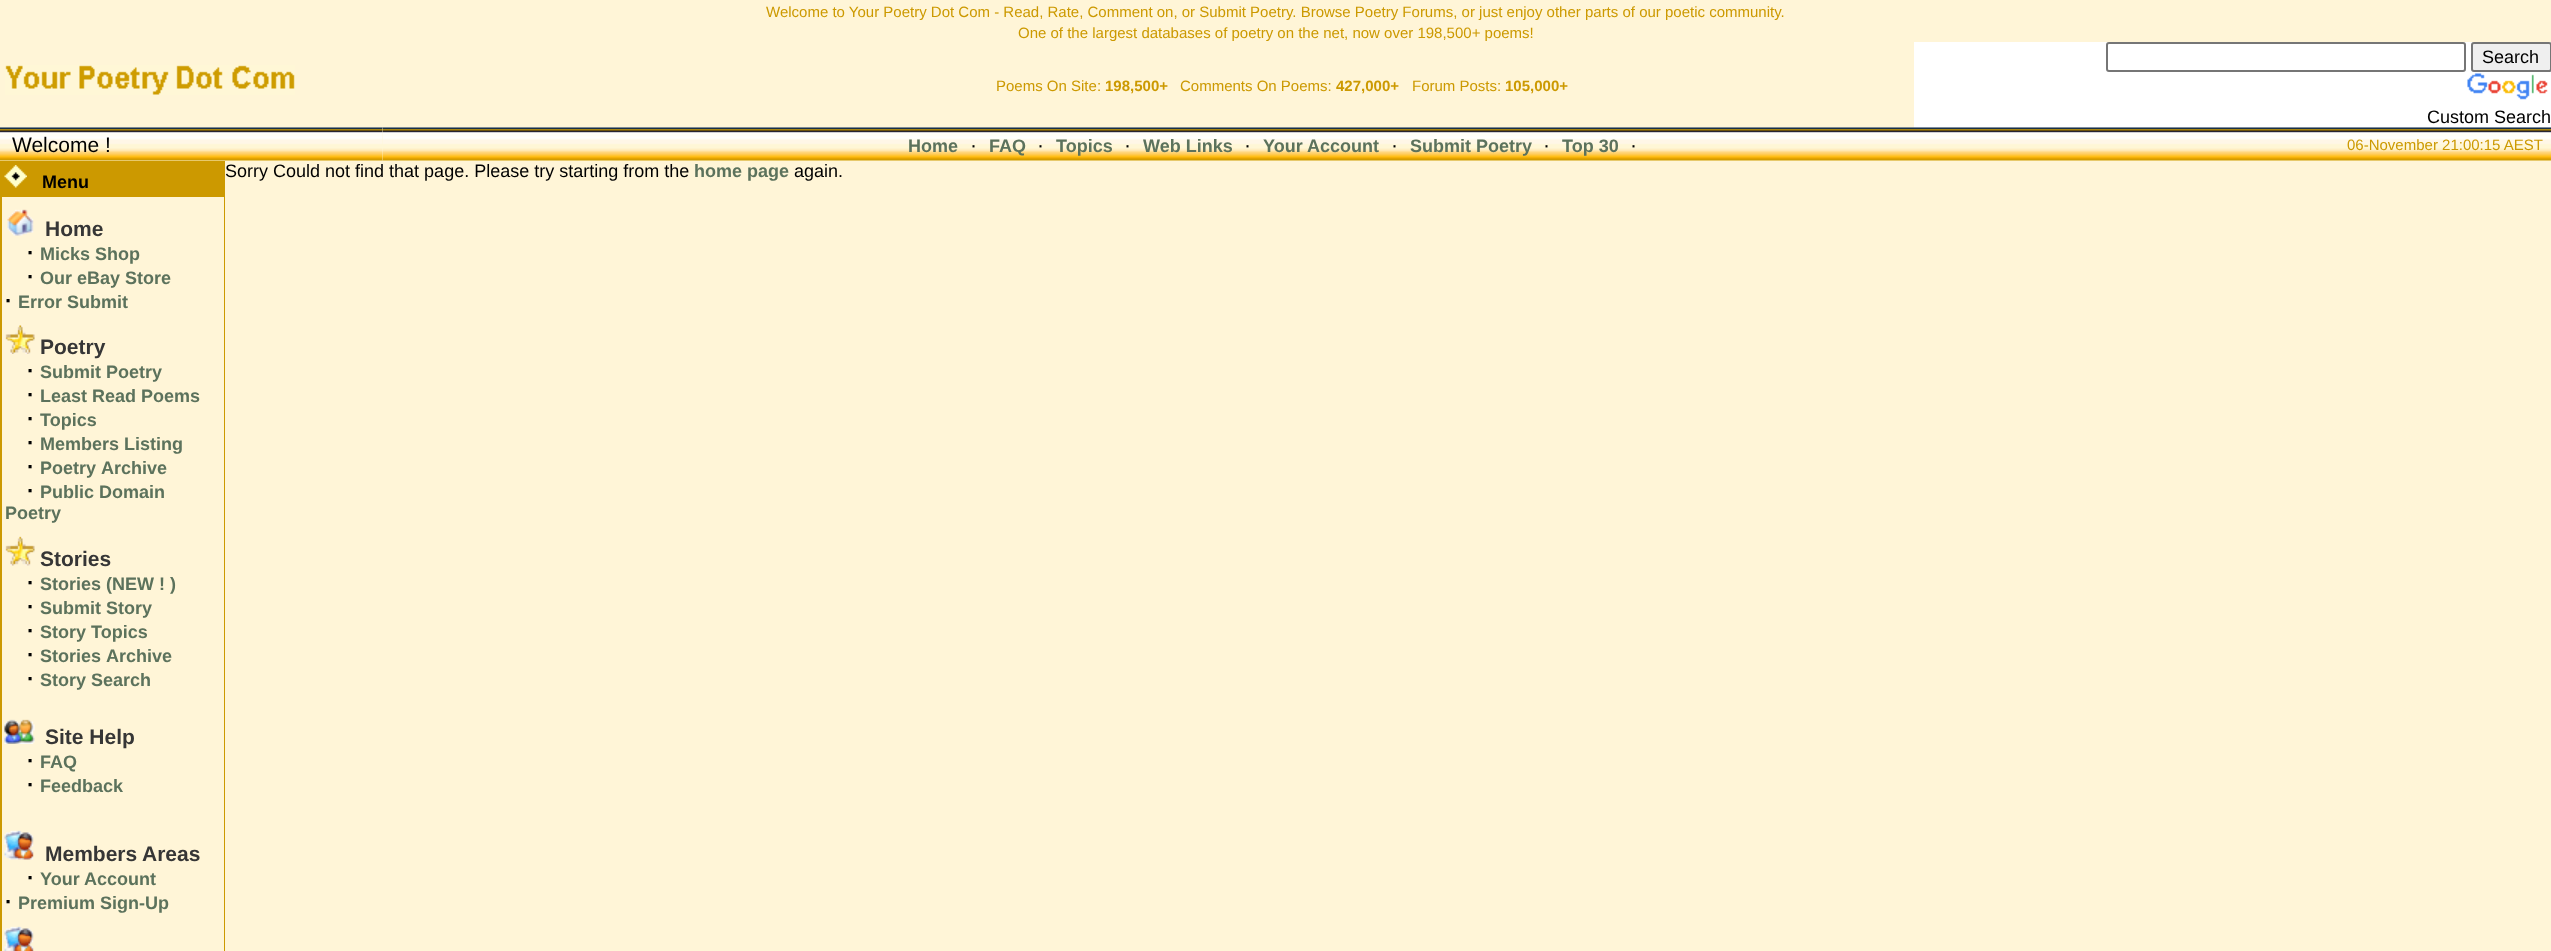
<svg xmlns="http://www.w3.org/2000/svg" width="2551" height="951" viewBox="0 0 2551 951">
  <style>
    .t1 { font: 15px Liberation Sans; fill: #c90; }
    .t2 { font: bold 15px Liberation Sans; fill: #c90; }
    .t3 { font: 18px Liberation Sans; fill: #000; }
    .t4 { font: 21px Liberation Sans; fill: #000; }
    .t5 { font: bold 18px Liberation Sans; fill: #5c725c; }
    .t6 { font: bold 18px Liberation Sans; fill: #000; }
    .t7 { font: bold 21px Liberation Sans; fill: #363636; }
    .t8 { font: bold 22px Liberation Sans; fill: #000; }
  </style>
  <rect width="100%" height="100%" fill="#fff5d7"/>
  <text x="766" y="17" class="t1">Welcome to Your Poetry Dot Com - Read, Rate, Comment on, or Submit Poetry. Browse Poetry Forums, or just enjoy other parts of our poetic community.</text>
  <text x="1018" y="38" class="t1">One of the largest databases of poetry on the net, now over 198,500+ poems!</text>
  <image x="5" y="65" width="290" height="30" href="images/1.png"/>
  <text x="996" y="91" class="t1">Poems On Site:</text>
  <text x="1105" y="91" class="t2">198,500+</text>
  <text x="1180" y="91" class="t1">Comments On Poems:</text>
  <text x="1336" y="91" class="t2">427,000+</text>
  <text x="1412" y="91" class="t1">Forum Posts:</text>
  <text x="1505" y="91" class="t2">105,000+</text>
  <rect x="1914" y="42" width="637" height="86" fill="#fff"/>
  <rect x="2107" y="43" width="358" height="28" rx="2" fill="none" stroke="#767676" stroke-width="2"/>
  <rect x="2472" y="43" width="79" height="28" rx="2" fill="#efefef" stroke="#767676" stroke-width="2"/>
  <text x="2482" y="63" class="t3">Search</text>
  <image x="2467" y="73" width="81" height="27" href="images/2.png"/>
  <text x="2427" y="123" class="t3">Custom Search</text>
  <image x="0" y="127" width="383" height="34" href="images/3.png"/>
  <text x="12" y="152" class="t4">Welcome !</text>
  <image x="382" y="127" width="1787" height="34" href="images/4.png"/>
  <text x="908" y="152" class="t5">Home</text>
  <text x="970" y="152" class="t4">·</text>
  <text x="989" y="152" class="t5">FAQ</text>
  <text x="1037" y="152" class="t4">·</text>
  <text x="1056" y="152" class="t5">Topics</text>
  <text x="1124" y="152" class="t4">·</text>
  <text x="1143" y="152" class="t5">Web Links</text>
  <text x="1244" y="152" class="t4">·</text>
  <text x="1263" y="152" class="t5">Your Account</text>
  <text x="1391" y="152" class="t4">·</text>
  <text x="1410" y="152" class="t5">Submit Poetry</text>
  <text x="1543" y="152" class="t4">·</text>
  <text x="1562" y="152" class="t5">Top 30</text>
  <text x="1630" y="152" class="t4">·</text>
  <image x="2169" y="127" width="382" height="34" href="images/5.png"/>
  <text x="2347" y="150" class="t1">06-November 21:00:15 AEST</text>
  <text x="225" y="177" class="t3">Sorry Could not find that page. Please try starting from the</text>
  <text x="694" y="177" class="t5">home page</text>
  <text x="794" y="177" class="t3">again.</text>
  <rect x="0" y="161" width="225" height="790" fill="#c90"/>
  <image x="4" y="165" width="23" height="23" href="images/6.png"/>
  <text x="42" y="188" class="t6">Menu</text>
  <rect x="2" y="197" width="222" height="754" fill="#fff5d7"/>
  <image x="7" y="209" width="27" height="27" href="images/7.png"/>
  <text x="45" y="236" class="t7">Home</text>
  <text x="27" y="260" class="t8">·</text>
  <text x="40" y="260" class="t5">Micks Shop</text>
  <text x="27" y="284" class="t8">·</text>
  <text x="40" y="284" class="t5">Our eBay Store</text>
  <text x="5" y="308" class="t8">·</text>
  <text x="18" y="308" class="t5">Error Submit</text>
  <image x="5" y="325" width="30" height="29" href="images/8.png"/>
  <text x="40" y="354" class="t7">Poetry</text>
  <text x="27" y="378" class="t8">·</text>
  <text x="40" y="378" class="t5">Submit Poetry</text>
  <text x="27" y="402" class="t8">·</text>
  <text x="40" y="402" class="t5">Least Read Poems</text>
  <text x="27" y="426" class="t8">·</text>
  <text x="40" y="426" class="t5">Topics</text>
  <text x="27" y="450" class="t8">·</text>
  <text x="40" y="450" class="t5">Members Listing</text>
  <text x="27" y="474" class="t8">·</text>
  <text x="40" y="474" class="t5">Poetry</text>
  <text x="101" y="474" class="t5">Archive</text>
  <text x="27" y="498" class="t8">·</text>
  <text x="40" y="498" class="t5">Public Domain</text>
  <text x="5" y="519" class="t5">Poetry</text>
  <image x="5" y="536" width="30" height="30" href="images/9.png"/>
  <text x="40" y="566" class="t7">Stories</text>
  <text x="27" y="590" class="t8">·</text>
  <text x="40" y="590" class="t5">Stories (NEW ! )</text>
  <text x="27" y="614" class="t8">·</text>
  <text x="40" y="614" class="t5">Submit Story</text>
  <text x="27" y="638" class="t8">·</text>
  <text x="40" y="638" class="t5">Story Topics</text>
  <text x="27" y="662" class="t8">·</text>
  <text x="40" y="662" class="t5">Stories</text>
  <text x="106" y="662" class="t5">Archive</text>
  <text x="27" y="686" class="t8">·</text>
  <text x="40" y="686" class="t5">Story Search</text>
  <image x="4" y="719" width="31" height="25" href="images/10.png"/>
  <text x="45" y="744" class="t7">Site Help</text>
  <text x="27" y="768" class="t8">·</text>
  <text x="40" y="768" class="t5">FAQ</text>
  <text x="27" y="792" class="t8">·</text>
  <text x="40" y="792" class="t5">Feedback</text>
  <image x="4" y="830" width="30" height="30" href="images/11.png"/>
  <text x="45" y="861" class="t7">Members</text>
  <text x="142" y="861" class="t7">Areas</text>
  <text x="27" y="885" class="t8">·</text>
  <text x="40" y="885" class="t5">Your</text>
  <text x="84" y="885" class="t5">Account</text>
  <text x="5" y="909" class="t8">·</text>
  <text x="18" y="909" class="t5">Premium Sign-Up</text>
  <image x="4" y="926" width="30" height="25" href="images/12.png"/>
</svg>
